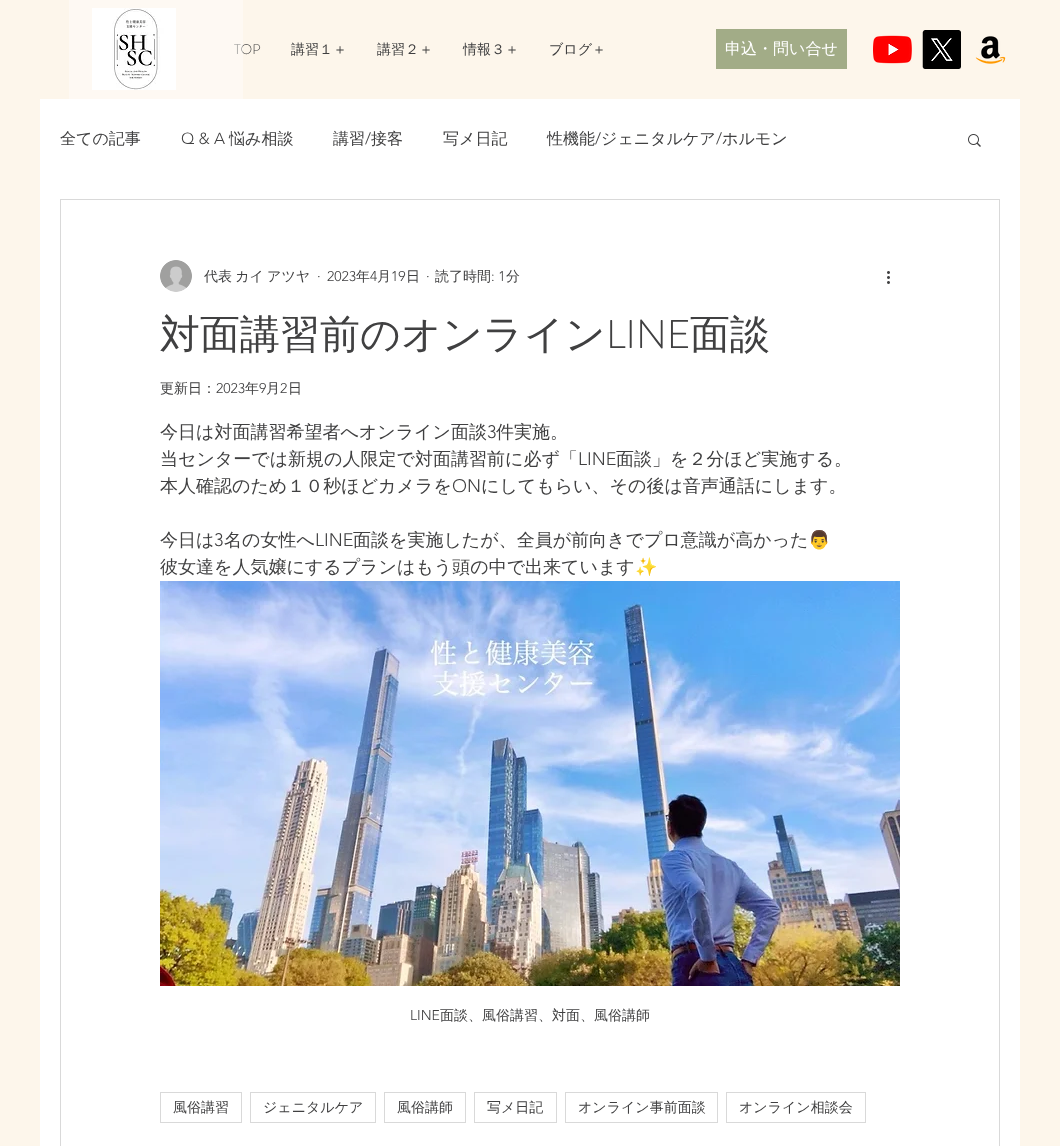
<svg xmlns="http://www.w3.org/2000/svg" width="1060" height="1146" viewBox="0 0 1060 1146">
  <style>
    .t1 { font: 300 14px 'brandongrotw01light'; fill: #404041; }
    .t2 { font: 500 14px WenQuanYi Zen Hei; fill: #404041; }
    .t3 { font: 500 16px WenQuanYi Zen Hei; fill: #fff; }
    .t4 { font: 500 16px WenQuanYi Zen Hei; fill: #404041; }
    .t5 { font: 300 16px 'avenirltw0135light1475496'; fill: #404041; }
    .t6 { font: 300 14px 'avenirltw0135light1475496'; fill: #404041; }
    .t7 { font: 500 40px WenQuanYi Zen Hei; fill: #404041; }
    .t8 { font: 300 40px 'brandongrotw01light'; fill: #404041; }
    .t9 { font: 500 18px WenQuanYi Zen Hei; fill: #404041; }
    .t10 { font: 300 18px 'avenirltw0135light1475496'; fill: #404041; }
    .t11 { font: 18px Noto Color Emoji; fill: #404041; }
  </style>
  <rect width="100%" height="100%" fill="#fdf6eb"/>
  <text x="234" y="54" class="t1">TOP</text>
  <rect x="69" y="0" width="174" height="99" fill="#ffffff66"/>
  <image x="92" y="8" width="84" height="82" href="images/1.png"/>
  <text x="291" y="54" class="t2">講習１＋</text>
  <text x="377" y="54" class="t2">講習２＋</text>
  <text x="463" y="54" class="t2">情報３＋</text>
  <text x="549" y="54" class="t2">ブログ＋</text>
  <rect x="716" y="29" width="131" height="40" fill="#a2ac87"/>
  <text x="725" y="54" class="t3">申込・問い合せ</text>
  <image x="873" y="35" width="39" height="29" href="images/2.png"/>
  <image x="922" y="30" width="39" height="39" href="images/3.png"/>
  <image x="975" y="36" width="31" height="28" href="images/4.png"/>
  <rect x="40" y="99" width="980" height="1047" fill="#fff"/>
  <text x="60" y="144" class="t4">全ての記事</text>
  <text x="181" y="144" class="t5">Q &amp; A</text>
  <text x="229" y="144" class="t4">悩み相談</text>
  <text x="333" y="144" class="t4">講習</text>
  <text x="365" y="144" class="t5">/</text>
  <text x="371" y="144" class="t4">接客</text>
  <text x="443" y="144" class="t4">写メ日記</text>
  <text x="547" y="144" class="t4">性機能</text>
  <text x="595" y="144" class="t5">/</text>
  <text x="601" y="144" class="t4">ジェニタルケア</text>
  <text x="716" y="144" class="t5">/</text>
  <text x="722" y="144" class="t4">ホルモン</text>
  <image x="968" y="134" width="13" height="13" href="images/5.png"/>
  <rect x="60.5" y="199.5" width="939" height="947" fill="none" stroke="#d9d9d9"/>
  <image x="160" y="260" width="32" height="32" href="images/6.png"/>
  <text x="204" y="281" word-spacing="-1" class="t2">代表 カイ アツヤ</text>
  <text x="317" y="281" class="t6">·</text>
  <text x="327" y="281" class="t6">2023</text>
  <text x="356" y="281" class="t2">年</text>
  <text x="370" y="281" class="t6">4</text>
  <text x="377" y="281" class="t2">月</text>
  <text x="391" y="281" class="t6">19</text>
  <text x="406" y="281" class="t2">日</text>
  <text x="426" y="281" class="t6">·</text>
  <text x="435" y="281" class="t2">読了時間</text>
  <text x="491" y="281" class="t6">: 1</text>
  <text x="506" y="281" class="t2">分</text>
  <image x="887" y="271" width="3" height="13" href="images/7.png"/>
  <text x="160" y="348" class="t7">対面講習前のオンライン</text>
  <text x="606" y="348" class="t8">LINE</text>
  <text x="690" y="348" class="t7">面談</text>
  <text x="160" y="393" class="t2">更新日：</text>
  <text x="216" y="393" class="t6">2023</text>
  <text x="245" y="393" class="t2">年</text>
  <text x="259" y="393" class="t6">9</text>
  <text x="266" y="393" class="t2">月</text>
  <text x="280" y="393" class="t6">2</text>
  <text x="288" y="393" class="t2">日</text>
  <text x="160" y="438" class="t9">今日は対面講習希望者へオンライン面談</text>
  <text x="487" y="438" class="t10">3</text>
  <text x="496" y="438" class="t9">件実施。</text>
  <text x="160" y="465" class="t9">当センターでは新規の人限定で対面講習前に必ず「</text>
  <text x="578" y="465" class="t10">LINE</text>
  <text x="616" y="465" class="t9">面談」を２分ほど実施する。</text>
  <text x="160" y="492" class="t9">本人確認のため１０秒ほどカメラを</text>
  <text x="452" y="492" class="t10">ON</text>
  <text x="481" y="492" class="t9">にしてもらい、その後は音声通話にします。</text>
  <text x="160" y="546" class="t9">今日は</text>
  <text x="214" y="546" class="t10">3</text>
  <text x="224" y="546" class="t9">名の女性へ</text>
  <text x="315" y="546" class="t10">LINE</text>
  <text x="353" y="546" class="t9">面談を実施したが、全員が前向きでプロ意識が高かった</text>
  <text x="808" y="546" class="t11">👨</text>
  <text x="160" y="573" class="t9">彼女達を人気嬢にするプランはもう頭の中で出来ています</text>
  <text x="635" y="573" class="t11">✨</text>
  <image x="160" y="581" width="740" height="405" href="images/8.png"/>
  <text x="410" y="1020" class="t6">LINE</text>
  <text x="440" y="1020" class="t2">面談、風俗講習、対面、風俗講師</text>
  <rect x="160.5" y="1092.5" width="81" height="30" fill="none" stroke="#d9d9d9"/>
  <text x="173" y="1112" class="t2">風俗講習</text>
  <rect x="250.5" y="1092.5" width="125" height="30" fill="none" stroke="#d9d9d9"/>
  <text x="263" y="1112" class="t2">ジェニタルケア</text>
  <rect x="384.5" y="1092.5" width="81" height="30" fill="none" stroke="#d9d9d9"/>
  <text x="397" y="1112" class="t2">風俗講師</text>
  <rect x="474.5" y="1092.5" width="82" height="30" fill="none" stroke="#d9d9d9"/>
  <text x="487" y="1112" class="t2">写メ日記</text>
  <rect x="565.5" y="1092.5" width="152" height="30" fill="none" stroke="#d9d9d9"/>
  <text x="578" y="1112" class="t2">オンライン事前面談</text>
  <rect x="726.5" y="1092.5" width="139" height="30" fill="none" stroke="#d9d9d9"/>
  <text x="739" y="1112" class="t2">オンライン相談会</text>
</svg>
